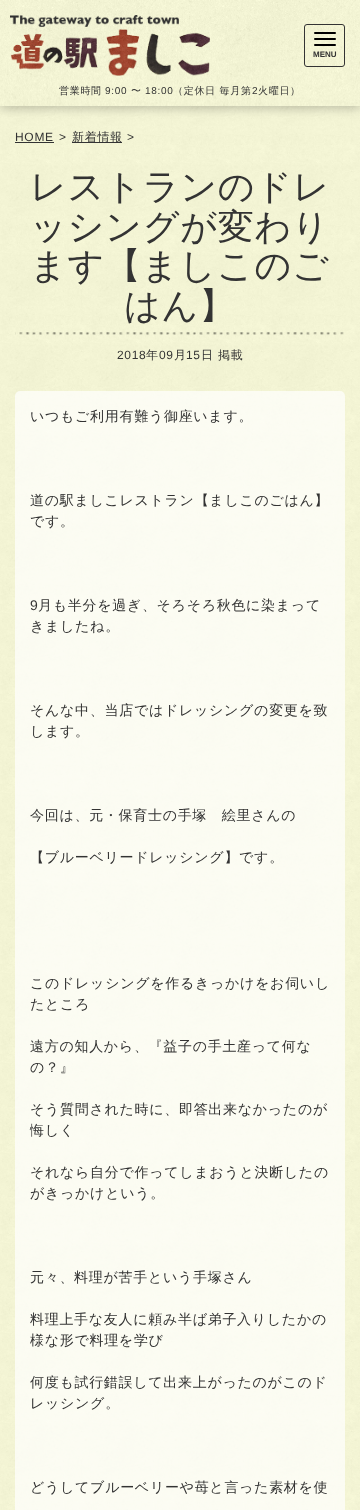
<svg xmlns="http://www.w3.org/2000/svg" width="360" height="1510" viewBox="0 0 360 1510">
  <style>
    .t1 { font: bold 8px Liberation Sans; fill: #333; }
    .t2 { font: 500 10px WenQuanYi Zen Hei; letter-spacing: 0.7px; fill: #333; }
    .t3 { font: 10px Liberation Sans; letter-spacing: 0.7px; fill: #333; }
    .t4 { font: 12px Liberation Sans; letter-spacing: 0.7px; fill: #333; }
    .t5 { font: 500 12px WenQuanYi Zen Hei; letter-spacing: 0.7px; fill: #333; }
    .t6 { font: 500 36px WenQuanYi Zen Hei; letter-spacing: 0.7px; fill: #333; }
    .t7 { font: 500 14px WenQuanYi Zen Hei; letter-spacing: 0.7px; fill: #333; }
    .t8 { font: 14px Liberation Sans; letter-spacing: 0.7px; fill: #333; }
  </style>
  <rect width="100%" height="100%" fill="#fff"/>
  <image x="0" y="106" width="360" height="1404" href="images/1.png"/>
  <rect x="0" y="3" width="360" height="106" fill="#00000033" filter="blur(5px)"/>
  <image x="0" y="0" width="360" height="106" href="images/2.png"/>
  <image x="10" y="15" width="200" height="61" href="images/3.png"/>
  <rect x="304.5" y="24.5" width="40" height="42" rx="2.5" fill="none" stroke="#333"/>
  <rect x="314" y="32" width="22" height="2" rx="1" fill="#000"/>
  <rect x="314" y="38" width="22" height="2" rx="1" fill="#000"/>
  <rect x="314" y="44" width="22" height="2" rx="1" fill="#000"/>
  <text x="313" y="57" class="t1">MENU</text>
  <text x="59" y="94" class="t2">営業時間</text>
  <text x="105" y="94" class="t3">9:00</text>
  <text x="131" y="94" class="t2">〜</text>
  <text x="145" y="94" class="t3">18:00</text>
  <text x="173" y="94" class="t2">（定休日 毎月第</text>
  <text x="252" y="94" class="t3">2</text>
  <text x="258" y="94" class="t2">火曜日）</text>
  <text x="15" y="141" class="t4">HOME</text>
  <rect x="15" y="142" width="39" height="1" fill="#333"/>
  <text x="59" y="141" class="t4">&gt;</text>
  <rect x="72" y="142" width="50" height="1" fill="#333"/>
  <text x="72" y="141" class="t5">新着情報</text>
  <text x="127" y="141" class="t4">&gt;</text>
  <image x="15" y="332" width="329" height="3" href="images/4.png"/>
  <text x="30" y="199" class="t6">レストランのドレ</text>
  <text x="30" y="239" class="t6">ッシングが変わり</text>
  <text x="30" y="278" class="t6">ます【ましこのご</text>
  <text x="124" y="318" class="t6">はん】</text>
  <text x="117" y="359" class="t4">2018</text>
  <text x="146" y="359" class="t5">年</text>
  <text x="159" y="359" class="t4">09</text>
  <text x="174" y="359" class="t5">月</text>
  <text x="186" y="359" class="t4">15</text>
  <text x="201" y="359" class="t5">日 掲載</text>
  <rect x="15" y="391" width="330" height="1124" rx="5" fill="#ffffffb3"/>
  <text x="30" y="421" class="t7">いつもご利用有難う御座います。</text>
  <text x="30" y="505" class="t7">道の駅ましこレストラン【ましこのごはん】</text>
  <text x="30" y="526" class="t7">です。</text>
  <text x="30" y="610" class="t8">9</text>
  <text x="38" y="610" class="t7">月も半分を過ぎ、そろそろ秋色に染まって</text>
  <text x="30" y="631" class="t7">きましたね。</text>
  <text x="30" y="715" class="t7">そんな中、当店ではドレッシングの変更を致</text>
  <text x="30" y="736" class="t7">します。</text>
  <text x="30" y="820" class="t7">今回は、元・保育士の手塚　絵里さんの</text>
  <text x="30" y="862" class="t7">【ブルーベリードレッシング】です。</text>
  <text x="30" y="988" class="t7">このドレッシングを作るきっかけをお伺いし</text>
  <text x="30" y="1009" class="t7">たところ</text>
  <text x="30" y="1051" class="t7">遠方の知人から、『益子の手土産って何な</text>
  <text x="30" y="1072" class="t7">の？』</text>
  <text x="30" y="1114" class="t7">そう質問された時に、即答出来なかったのが</text>
  <text x="30" y="1135" class="t7">悔しく</text>
  <text x="30" y="1177" class="t7">それなら自分で作ってしまおうと決断したの</text>
  <text x="30" y="1198" class="t7">がきっかけという。</text>
  <text x="30" y="1282" class="t7">元々、料理が苦手という手塚さん</text>
  <text x="30" y="1324" class="t7">料理上手な友人に頼み半ば弟子入りしたかの</text>
  <text x="30" y="1345" class="t7">様な形で料理を学び</text>
  <text x="30" y="1387" class="t7">何度も試行錯誤して出来上がったのがこのド</text>
  <text x="30" y="1408" class="t7">レッシング。</text>
  <text x="30" y="1492" class="t7">どうしてブルーベリーや苺と言った素材を使</text>
</svg>
